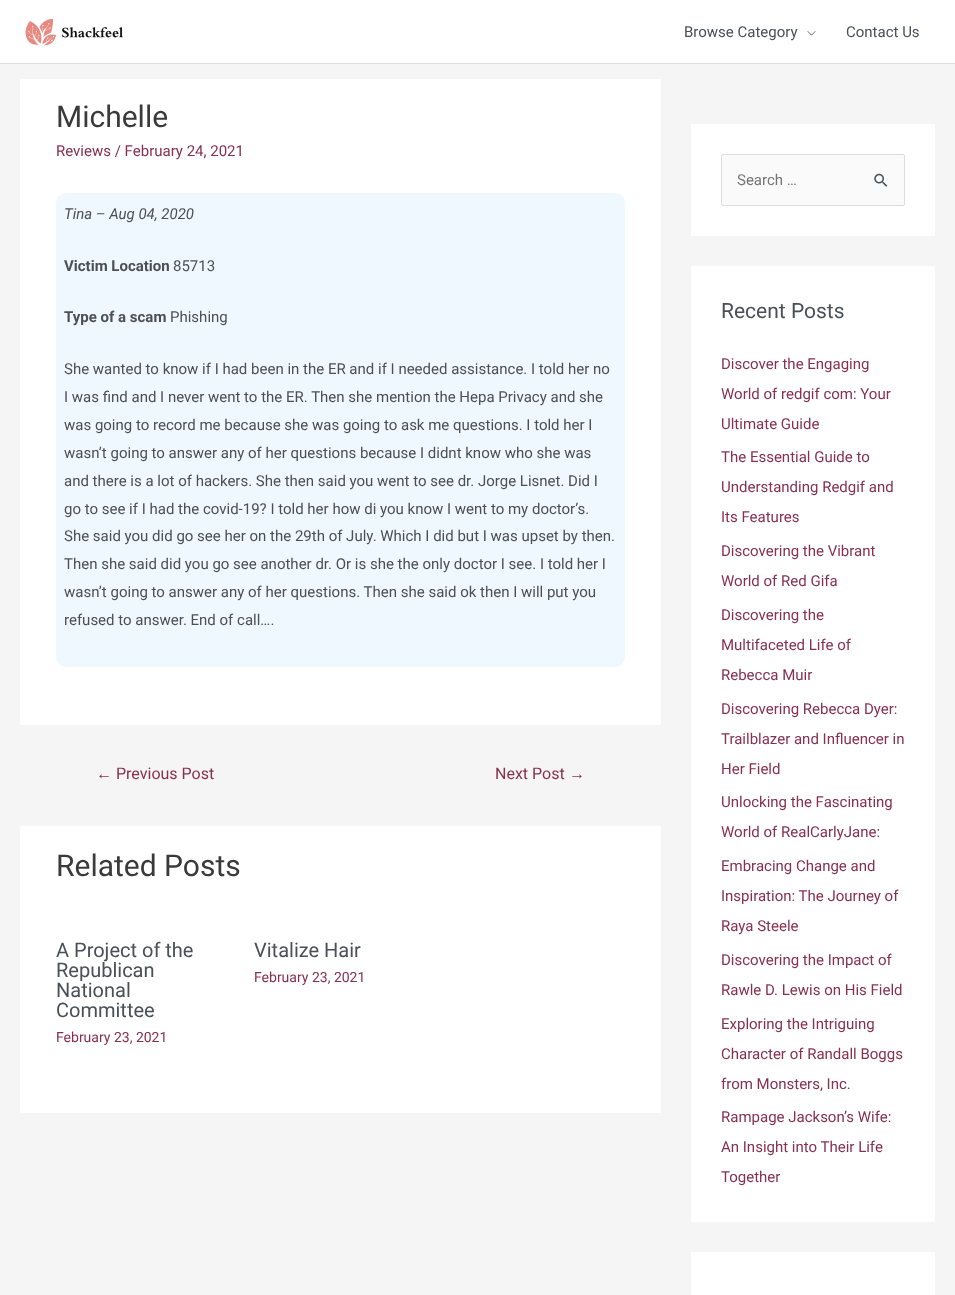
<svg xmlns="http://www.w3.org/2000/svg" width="955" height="1295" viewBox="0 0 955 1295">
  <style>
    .t1 { font: 15px Roboto; fill: #4b4f58; }
    .t2 { font: 30px Roboto; fill: #3a3a3a; }
    .t3 { font: 15px Roboto; fill: #88304e; }
    .t4 { font: italic 15px Roboto; fill: #4b4f58; }
    .t5 { font: bold 15px Roboto; fill: #4b4f58; }
    .t6 { font: 16px Liberation Sans; fill: #88304e; }
    .t7 { font: 16px Roboto; fill: #88304e; }
    .t8 { font: 20px Roboto; fill: #4b4f58; }
    .t9 { font: 14px Roboto; fill: #88304e; }
    .t10 { font: 15px Roboto; fill: #757575; }
    .t11 { font: 21px Roboto; fill: #4b4f58; }
  </style>
  <rect width="100%" height="100%" fill="#f5f5f5"/>
  <rect x="0" y="0" width="955" height="63" fill="#fff"/>
  <rect x="0" y="63" width="955" height="1" fill="#ddd"/>
  <image x="25" y="18" width="98" height="28" href="images/1.png"/>
  <text x="684" y="37" class="t1">Browse Category</text>
  <image x="807" y="31" width="9" height="5" href="images/2.png"/>
  <text x="846" y="37" class="t1">Contact Us</text>
  <rect x="20" y="79" width="641" height="646" fill="#fff"/>
  <text x="56" y="127" class="t2">Michelle</text>
  <text x="56" y="156" class="t3">Reviews / February 24, 2021</text>
  <rect x="56" y="193" width="569" height="474" rx="10" fill="#f0f8ff"/>
  <text x="64" y="219" class="t4">Tina – Aug 04, 2020</text>
  <text x="64" y="271" class="t5">Victim Location</text>
  <text x="173" y="271" class="t1">85713</text>
  <text x="64" y="322" class="t5">Type of a scam</text>
  <text x="170" y="322" class="t1">Phishing</text>
  <text x="64" y="374" class="t1">She wanted to know if I had been in the ER and if I needed assistance. I told her no</text>
  <text x="64" y="402" class="t1">I was find and I never went to the ER. Then she mention the Hepa Privacy and she</text>
  <text x="64" y="430" class="t1">was going to record me because she was going to ask me questions. I told her I</text>
  <text x="64" y="458" class="t1">wasn’t going to answer any of her questions because I didnt know who she was</text>
  <text x="64" y="486" class="t1">and there is a lot of hackers. She then said you went to see dr. Jorge Lisnet. Did I</text>
  <text x="64" y="514" class="t1">go to see if I had the covid-19? I told her how di you know I went to my doctor’s.</text>
  <text x="64" y="541" class="t1">She said you did go see her on the 29th of July. Which I did but I was upset by then.</text>
  <text x="64" y="569" class="t1">Then she said did you go see another dr. Or is she the only doctor I see. I told her I</text>
  <text x="64" y="597" class="t1">wasn’t going to answer any of her questions. Then she said ok then I will put you</text>
  <text x="64" y="625" class="t1">refused to answer. End of call….</text>
  <text x="96" y="779" class="t6">←</text>
  <text x="116" y="779" class="t7">Previous Post</text>
  <text x="495" y="779" class="t7">Next Post</text>
  <text x="569" y="779" class="t6">→</text>
  <rect x="20" y="826" width="641" height="287" fill="#fff"/>
  <text x="56" y="876" class="t2">Related Posts</text>
  <text x="56" y="957" class="t8">A Project of the</text>
  <text x="56" y="977" class="t8">Republican</text>
  <text x="56" y="997" class="t8">National</text>
  <text x="56" y="1017" class="t8">Committee</text>
  <text x="56" y="1042" class="t9">February 23, 2021</text>
  <text x="254" y="957" class="t8">Vitalize Hair</text>
  <text x="254" y="982" class="t9">February 23, 2021</text>
  <rect x="691" y="124" width="244" height="112" fill="#fff"/>
  <rect x="721.5" y="154.5" width="183" height="51" rx="1.5" fill="#fafafa" stroke="#ddd"/>
  <text x="737" y="185" class="t10">Search …</text>
  <image x="874" y="173" width="14" height="14" href="images/3.png"/>
  <rect x="691" y="266" width="244" height="956" fill="#fff"/>
  <text x="721" y="318" class="t11">Recent Posts</text>
  <text x="721" y="369" class="t3">Discover the Engaging</text>
  <text x="721" y="399" class="t3">World of redgif com: Your</text>
  <text x="721" y="429" class="t3">Ultimate Guide</text>
  <text x="721" y="462" class="t3">The Essential Guide to</text>
  <text x="721" y="492" class="t3">Understanding Redgif and</text>
  <text x="721" y="522" class="t3">Its Features</text>
  <text x="721" y="556" class="t3">Discovering the Vibrant</text>
  <text x="721" y="586" class="t3">World of Red Gifa</text>
  <text x="721" y="620" class="t3">Discovering the</text>
  <text x="721" y="650" class="t3">Multifaceted Life of</text>
  <text x="721" y="680" class="t3">Rebecca Muir</text>
  <text x="721" y="714" class="t3">Discovering Rebecca Dyer:</text>
  <text x="721" y="744" class="t3">Trailblazer and Influencer in</text>
  <text x="721" y="774" class="t3">Her Field</text>
  <text x="721" y="807" class="t3">Unlocking the Fascinating</text>
  <text x="721" y="837" class="t3">World of RealCarlyJane:</text>
  <text x="721" y="871" class="t3">Embracing Change and</text>
  <text x="721" y="901" class="t3">Inspiration: The Journey of</text>
  <text x="721" y="931" class="t3">Raya Steele</text>
  <text x="721" y="965" class="t3">Discovering the Impact of</text>
  <text x="721" y="995" class="t3">Rawle D. Lewis on His Field</text>
  <text x="721" y="1029" class="t3">Exploring the Intriguing</text>
  <text x="721" y="1059" class="t3">Character of Randall Boggs</text>
  <text x="721" y="1089" class="t3">from Monsters, Inc.</text>
  <text x="721" y="1122" class="t3">Rampage Jackson’s Wife:</text>
  <text x="721" y="1152" class="t3">An Insight into Their Life</text>
  <text x="721" y="1182" class="t3">Together</text>
  <rect x="691" y="1252" width="244" height="43" fill="#fff"/>
</svg>
